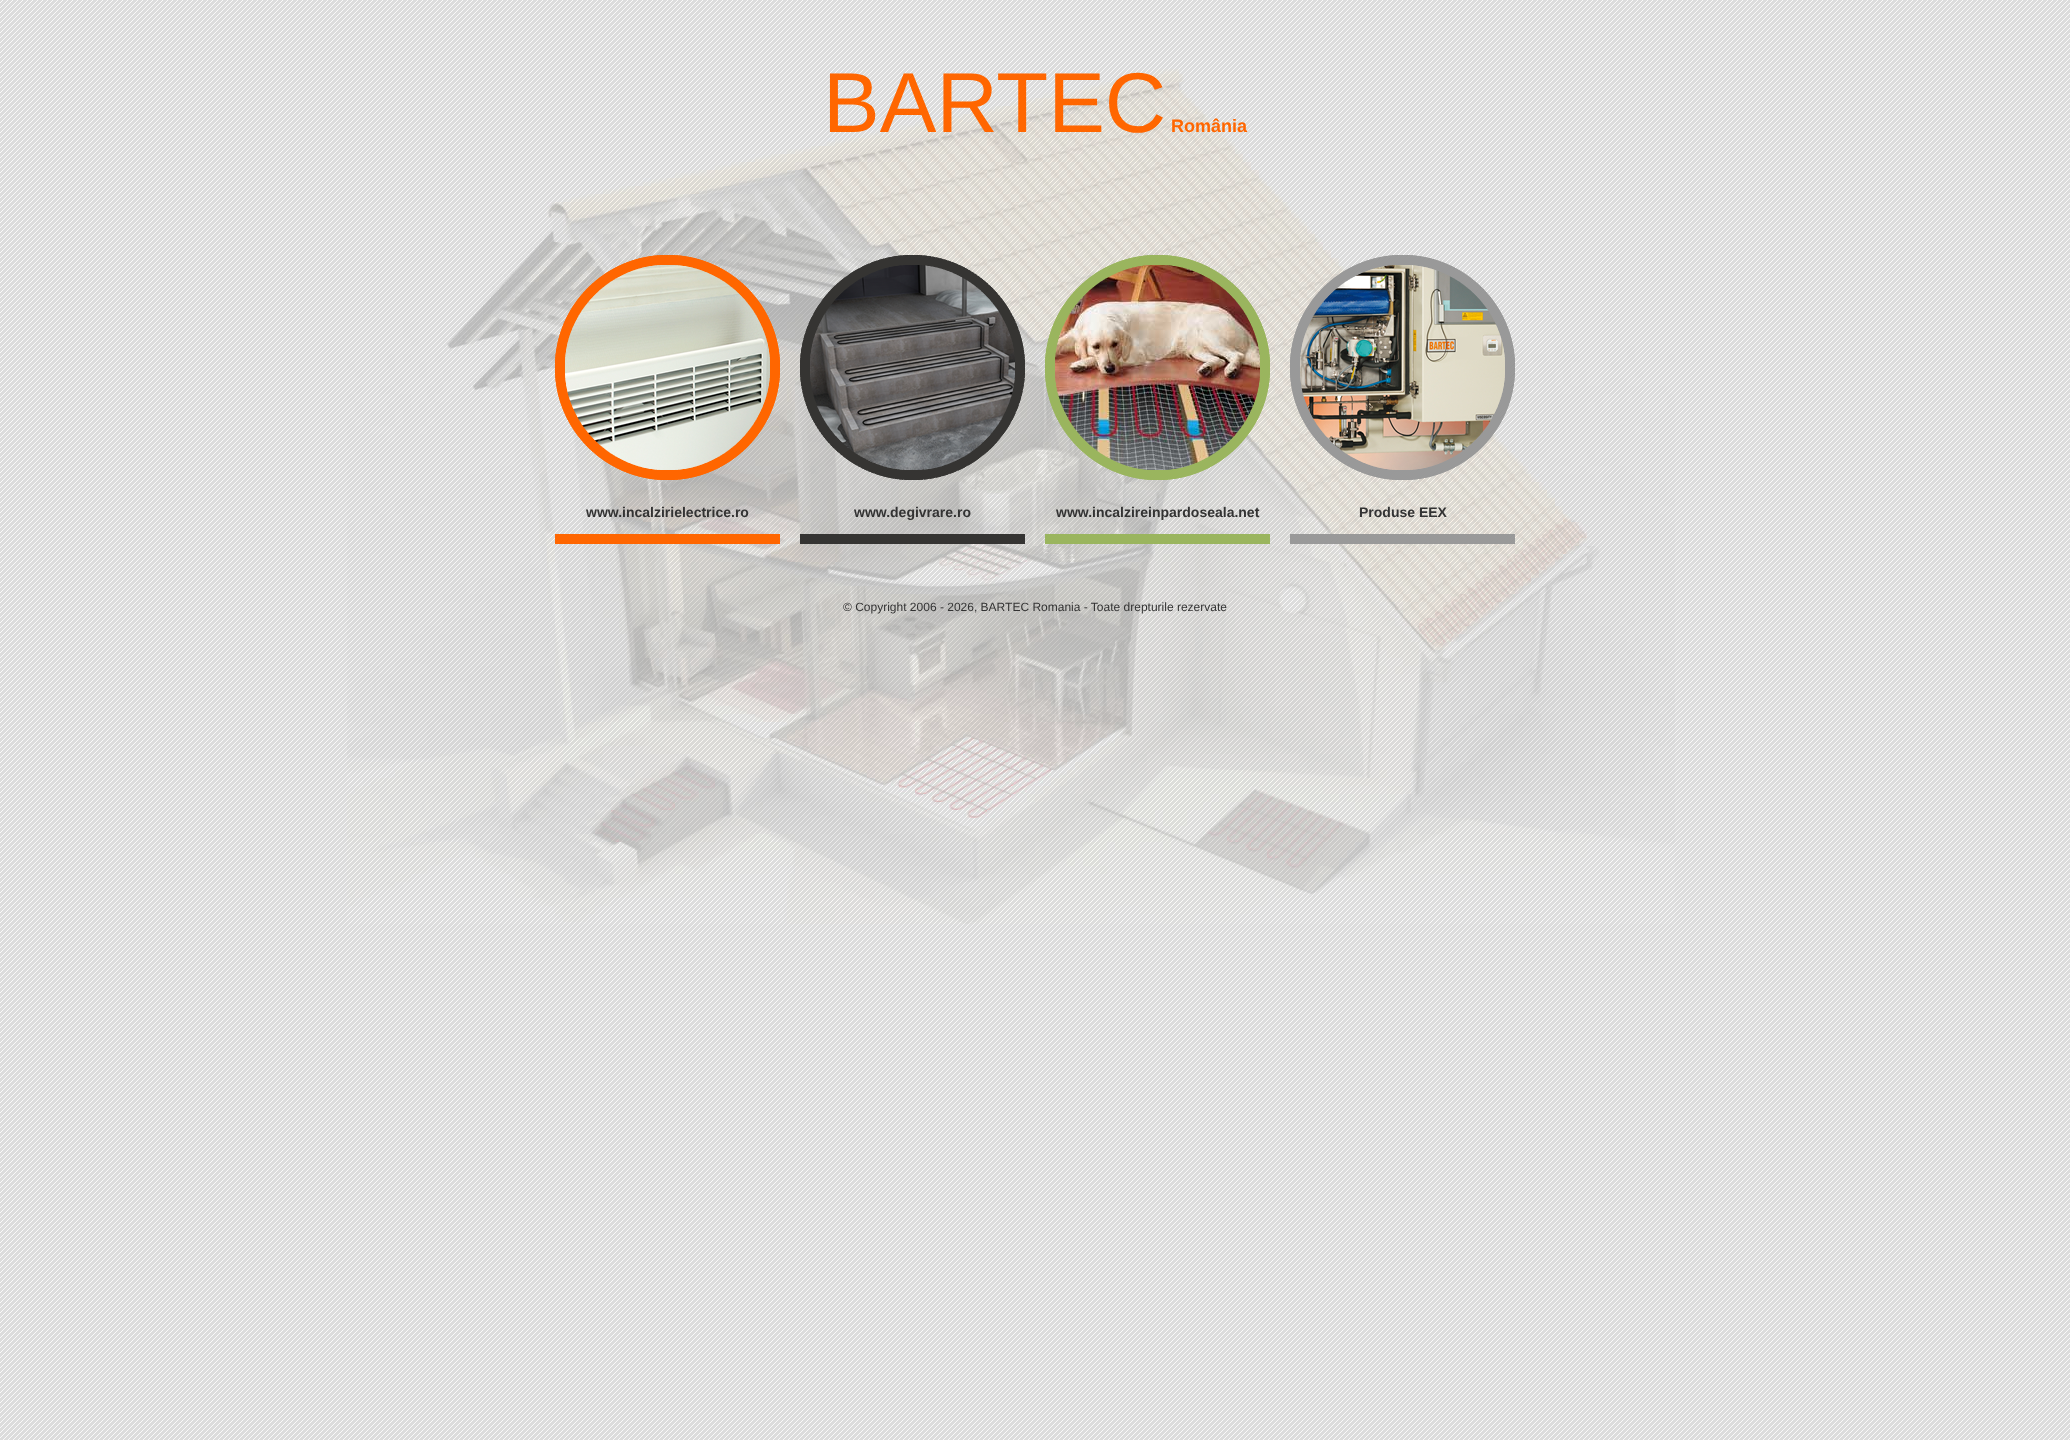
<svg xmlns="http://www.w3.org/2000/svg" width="2070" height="1440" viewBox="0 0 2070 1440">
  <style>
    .t1 { font: 85px Liberation Sans; fill: #f60; }
    .t2 { font: bold 18px Liberation Sans; fill: #f60; }
    .t3 { font: bold 14px Liberation Sans; fill: #333; }
    .t4 { font: 12px Liberation Sans; fill: #333; }
  </style>
  <rect width="100%" height="100%" fill="#f9f9f9"/>
  <image x="347" y="69" width="1328" height="855" href="images/1.png"/>
  <image x="0" y="0" width="2070" height="1440" href="images/2.png"/>
  <text x="823" y="132" class="t1">BARTEC</text>
  <text x="1171" y="132" class="t2">România</text>
  <image x="555" y="255" width="225" height="225" href="images/3.png"/>
  <rect x="555" y="534" width="225" height="10" fill="#f60"/>
  <text x="586" y="517" class="t3">www.incalzirielectrice.ro</text>
  <image x="800" y="255" width="225" height="225" href="images/4.png"/>
  <rect x="800" y="534" width="225" height="10" fill="#353432"/>
  <text x="854" y="517" class="t3">www.degivrare.ro</text>
  <image x="1045" y="255" width="225" height="225" href="images/5.png"/>
  <rect x="1045" y="534" width="225" height="10" fill="#9ab55e"/>
  <text x="1056" y="517" class="t3">www.incalzireinpardoseala.net</text>
  <image x="1290" y="255" width="225" height="225" href="images/6.png"/>
  <rect x="1290" y="534" width="225" height="10" fill="#999"/>
  <text x="1359" y="517" class="t3">Produse EEX</text>
  <text x="843" y="611" class="t4">© Copyright 2006 - 2026, BARTEC Romania - Toate drepturile rezervate</text>
</svg>
